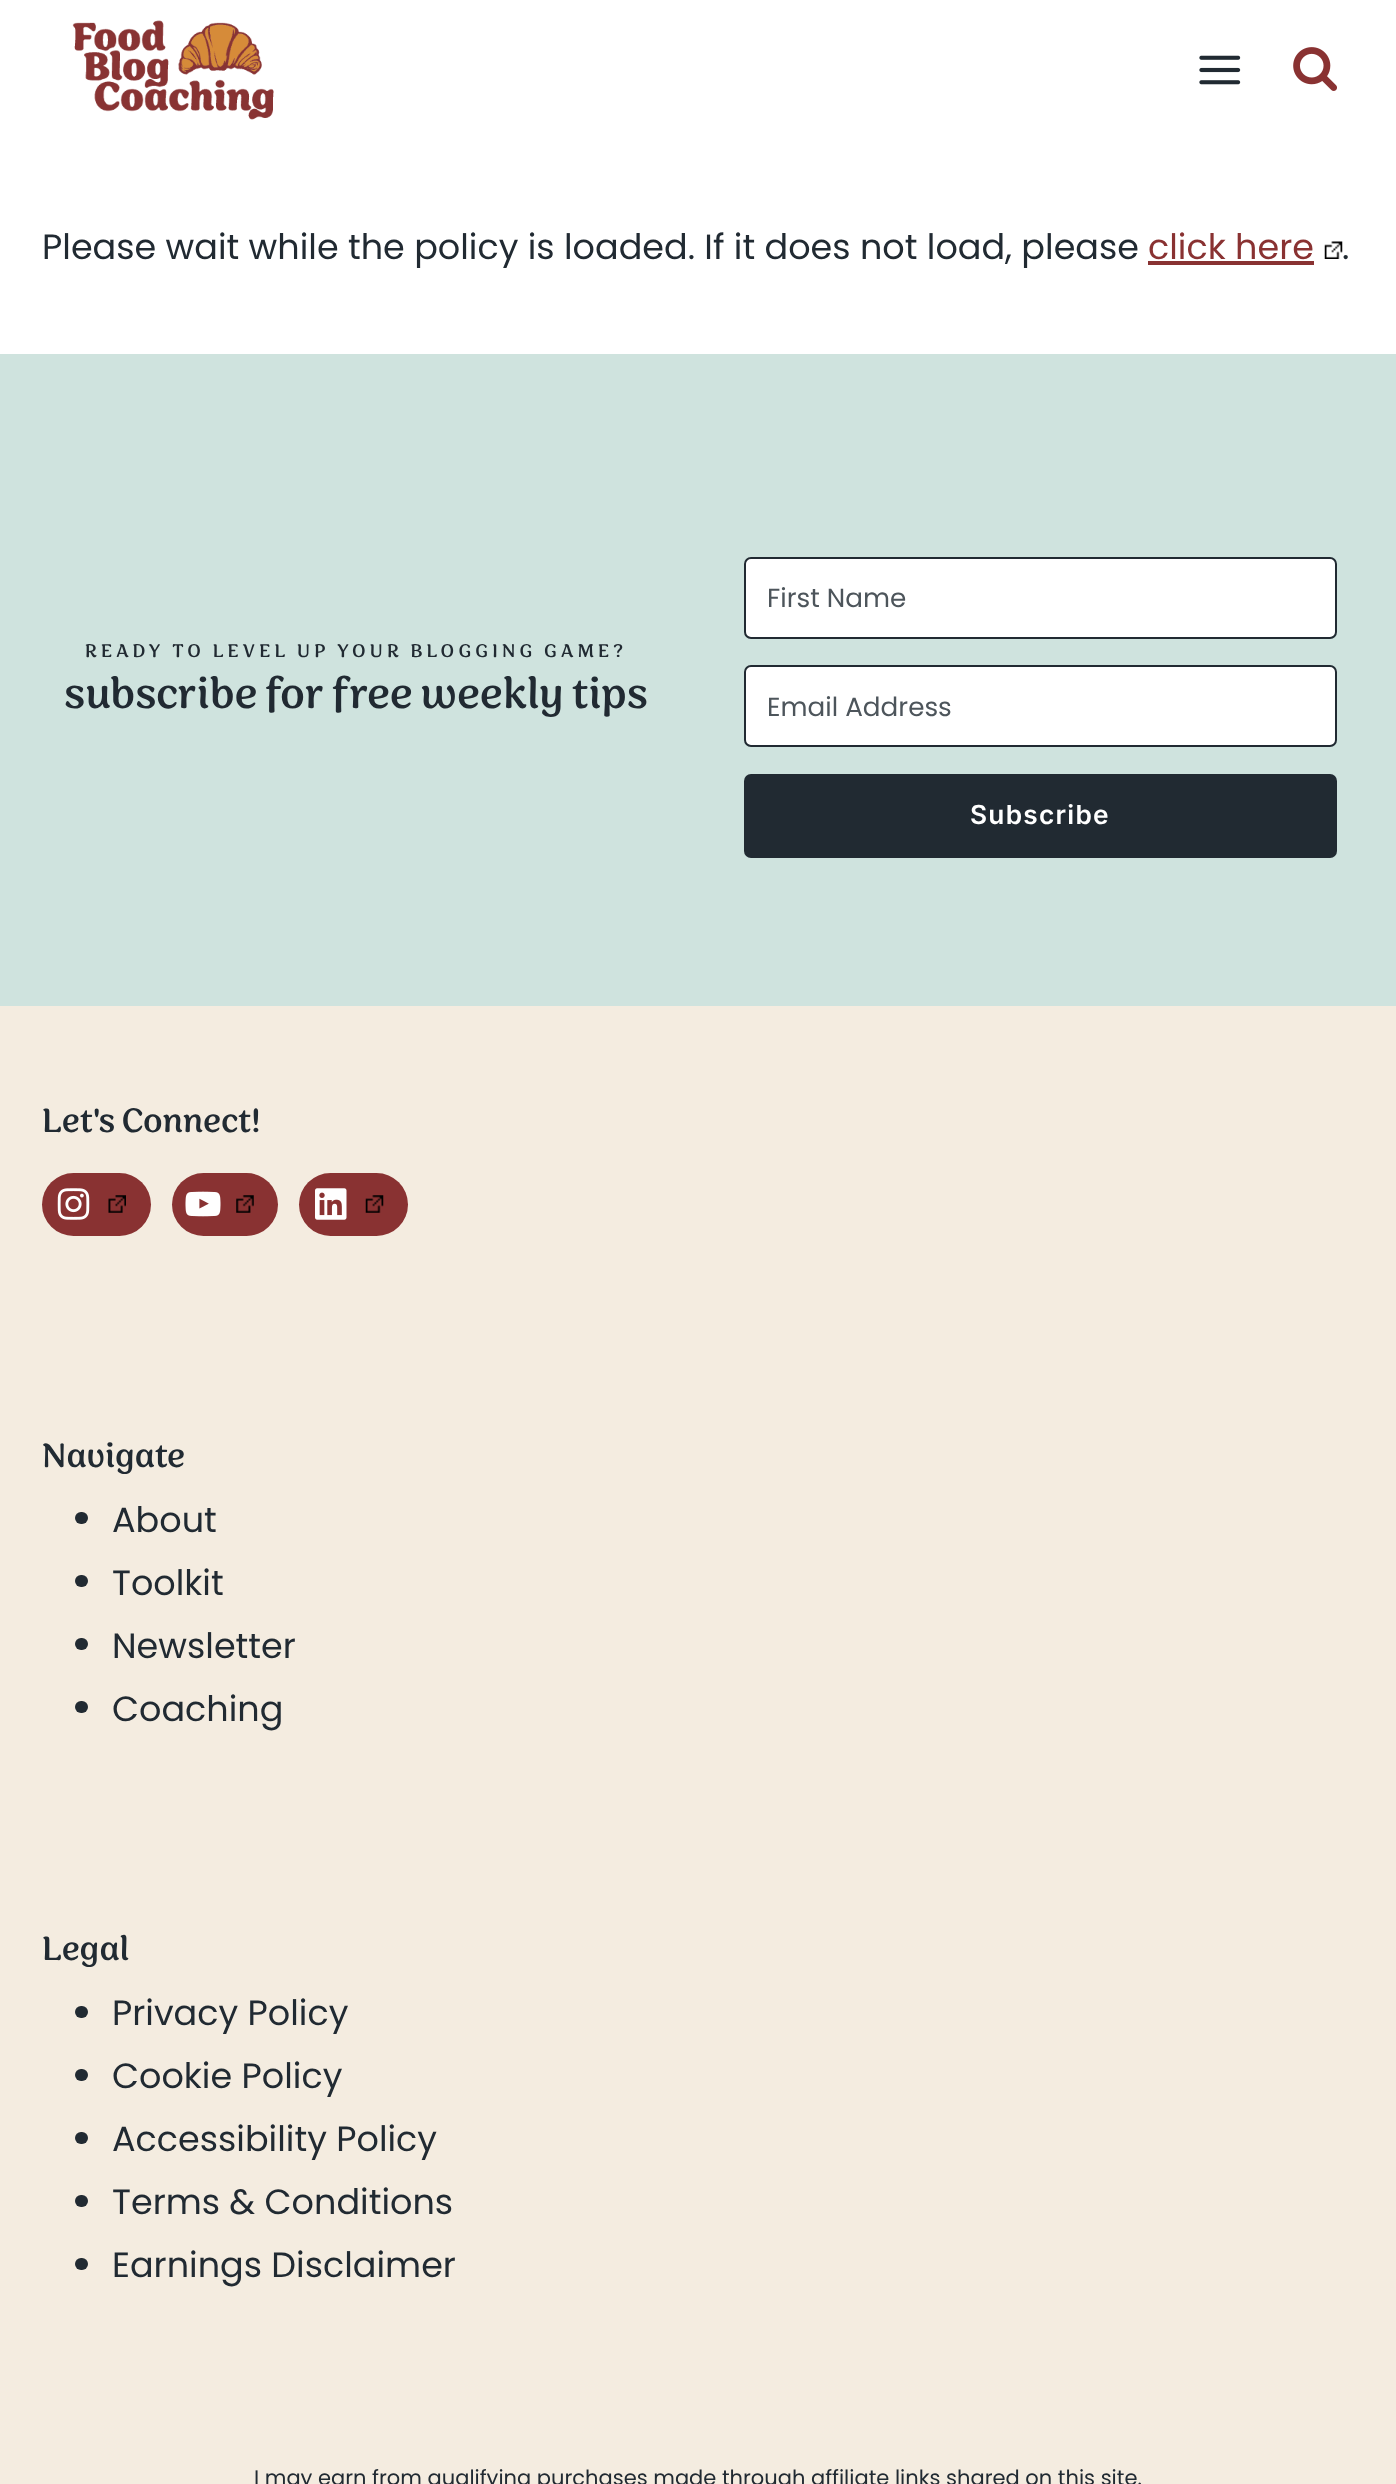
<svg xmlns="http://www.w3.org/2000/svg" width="1396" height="2484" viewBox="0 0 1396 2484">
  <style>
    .t1 { font: 35px Poppins; fill: #212a32; }
    .t2 { font: 35px Poppins; fill: #893232; }
    .t3 { font: 21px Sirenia; letter-spacing: 4.2px; fill: #212a32; }
    .t4 { font: 49px Sirenia; fill: #212a32; }
    .t5 { font: 26.25px Poppins; fill: #4d555b; }
    .t6 { font: 600 26.25px Inter; letter-spacing: 1.25px; fill: #fff; }
    .t7 { font: 38.5px Sirenia; fill: #212a32; }
    .t8 { font: 21px Poppins; fill: #212a32; }
  </style>
  <rect width="100%" height="100%" fill="#fff"/>
  <image x="72" y="20" width="202" height="100" href="images/1.png"/>
  <image x="1199" y="55" width="42" height="30" href="images/2.png"/>
  <image x="1293" y="47" width="44" height="44" href="images/3.png"/>
  <text x="42" y="259" class="t1">Please wait while the policy is loaded. If it does not load, please</text>
  <text x="1148" y="259" class="t2">click here</text>
  <rect x="1148" y="261" width="166" height="4" fill="#893232"/>
  <image x="1324" y="241" width="19" height="18" href="images/4.png"/>
  <text x="1342" y="259" class="t1">.</text>
  <rect x="0" y="354" width="1396" height="652" fill="#cfe3de"/>
  <text x="85" y="657" class="t3">READY TO LEVEL UP YOUR BLOGGING GAME?</text>
  <text x="64" y="708" class="t4">subscribe for free weekly tips</text>
  <rect x="745" y="558" width="591" height="80" rx="6" fill="#fff" stroke="#212a32" stroke-width="2"/>
  <text x="767" y="607" class="t5">First Name</text>
  <rect x="745" y="666" width="591" height="80" rx="6" fill="#fff" stroke="#212a32" stroke-width="2"/>
  <text x="767" y="716" class="t5">Email Address</text>
  <rect x="744" y="774" width="593" height="84" rx="7" fill="#212a32"/>
  <text x="970" y="824" class="t6">Subscribe</text>
  <rect x="0" y="1006" width="1396" height="1478" fill="#f4ece0"/>
  <text x="42" y="1132" class="t7">Let's Connect!</text>
  <rect x="42" y="1173" width="109" height="63" rx="31.5" fill="#893232"/>
  <image x="57" y="1188" width="33" height="32" href="images/5.png"/>
  <image x="108" y="1195" width="18" height="18" href="images/6.png"/>
  <rect x="172" y="1173" width="106" height="63" rx="31.5" fill="#893232"/>
  <image x="185" y="1191" width="36" height="26" href="images/7.png"/>
  <image x="236" y="1195" width="18" height="18" href="images/8.png"/>
  <rect x="299" y="1173" width="109" height="63" rx="31.5" fill="#893232"/>
  <image x="315" y="1188" width="32" height="32" href="images/9.png"/>
  <image x="365" y="1195" width="19" height="18" href="images/10.png"/>
  <text x="42" y="1467" class="t7">Navigate</text>
  <rect x="75" y="1512" width="13" height="12" rx="6" fill="#212a32"/>
  <text x="112" y="1532" class="t1">About</text>
  <rect x="75" y="1575" width="13" height="12" rx="6" fill="#212a32"/>
  <text x="112" y="1595" class="t1">Toolkit</text>
  <rect x="75" y="1638" width="13" height="12" rx="6" fill="#212a32"/>
  <text x="112" y="1658" class="t1">Newsletter</text>
  <rect x="75" y="1701" width="13" height="12" rx="6" fill="#212a32"/>
  <text x="112" y="1721" class="t1">Coaching</text>
  <text x="42" y="1960" class="t7">Legal</text>
  <rect x="75" y="2006" width="13" height="12" rx="6" fill="#212a32"/>
  <text x="112" y="2025" class="t1">Privacy Policy</text>
  <rect x="75" y="2069" width="13" height="12" rx="6" fill="#212a32"/>
  <text x="112" y="2088" class="t1">Cookie Policy</text>
  <rect x="75" y="2132" width="13" height="12" rx="6" fill="#212a32"/>
  <text x="112" y="2151" class="t1">Accessibility Policy</text>
  <rect x="75" y="2195" width="13" height="12" rx="6" fill="#212a32"/>
  <text x="112" y="2214" class="t1">Terms &amp; Conditions</text>
  <rect x="75" y="2258" width="13" height="12" rx="6" fill="#212a32"/>
  <text x="112" y="2277" class="t1">Earnings Disclaimer</text>
  <text x="254" y="2485" class="t8">I may earn from qualifying purchases made through affiliate links shared on this site.</text>
</svg>
